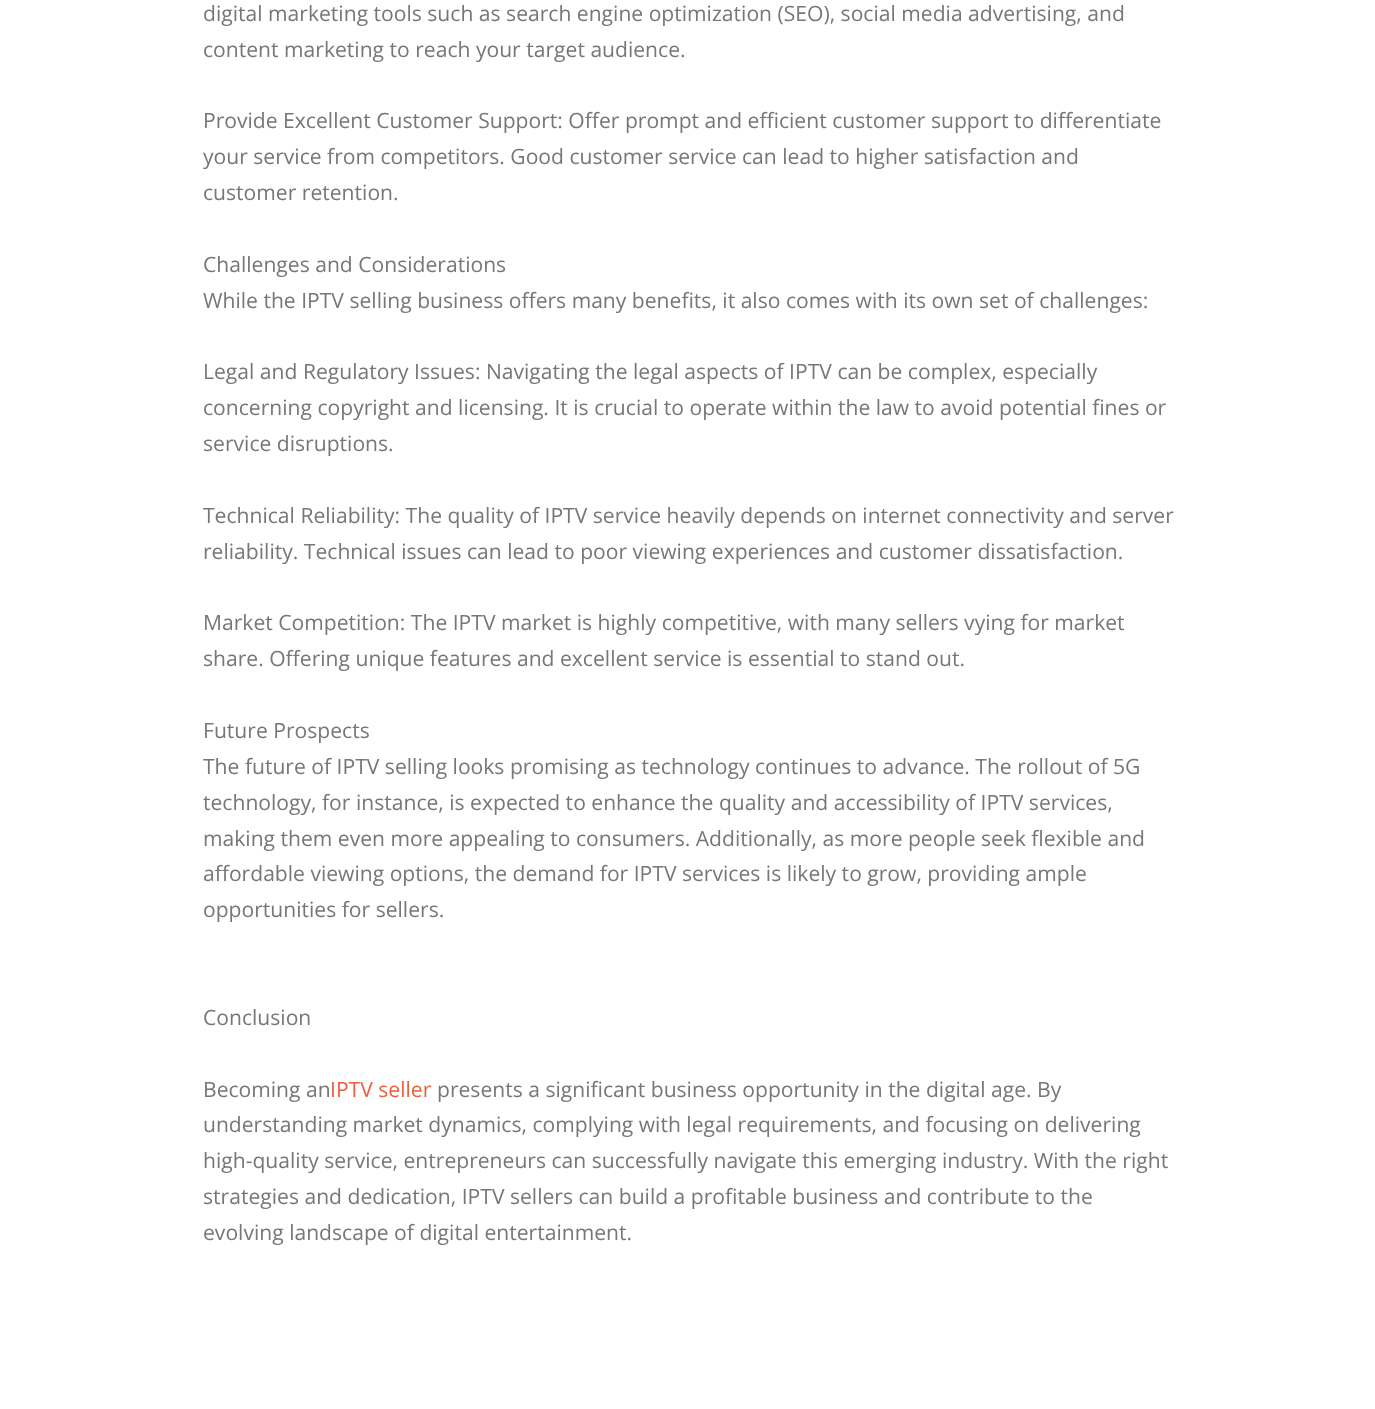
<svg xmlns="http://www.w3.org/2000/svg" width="1375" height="1409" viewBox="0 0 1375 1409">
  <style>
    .t1 { font: 21.1px Open Sans; fill: #777; }
    .t2 { font: 21.1px Open Sans; fill: #e86240; }
  </style>
  <rect width="100%" height="100%" fill="#fff"/>
  <text x="203" y="21" class="t1">digital marketing tools such as search engine optimization (SEO), social media advertising, and</text>
  <text x="203" y="57" class="t1">content marketing to reach your target audience.</text>
  <text x="203" y="128" class="t1">Provide Excellent Customer Support: Offer prompt and efficient customer support to differentiate</text>
  <text x="203" y="164" class="t1">your service from competitors. Good customer service can lead to higher satisfaction and</text>
  <text x="203" y="200" class="t1">customer retention.</text>
  <text x="203" y="272" class="t1">Challenges and Considerations</text>
  <text x="203" y="308" class="t1">While the IPTV selling business offers many benefits, it also comes with its own set of challenges:</text>
  <text x="203" y="379" class="t1">Legal and Regulatory Issues: Navigating the legal aspects of IPTV can be complex, especially</text>
  <text x="203" y="415" class="t1">concerning copyright and licensing. It is crucial to operate within the law to avoid potential fines or</text>
  <text x="203" y="451" class="t1">service disruptions.</text>
  <text x="203" y="523" class="t1">Technical Reliability: The quality of IPTV service heavily depends on internet connectivity and server</text>
  <text x="203" y="559" class="t1">reliability. Technical issues can lead to poor viewing experiences and customer dissatisfaction.</text>
  <text x="203" y="630" class="t1">Market Competition: The IPTV market is highly competitive, with many sellers vying for market</text>
  <text x="203" y="666" class="t1">share. Offering unique features and excellent service is essential to stand out.</text>
  <text x="203" y="738" class="t1">Future Prospects</text>
  <text x="203" y="774" class="t1">The future of IPTV selling looks promising as technology continues to advance. The rollout of 5G</text>
  <text x="203" y="810" class="t1">technology, for instance, is expected to enhance the quality and accessibility of IPTV services,</text>
  <text x="203" y="846" class="t1">making them even more appealing to consumers. Additionally, as more people seek flexible and</text>
  <text x="203" y="881" class="t1">affordable viewing options, the demand for IPTV services is likely to grow, providing ample</text>
  <text x="203" y="917" class="t1">opportunities for sellers.</text>
  <text x="203" y="1025" class="t1">Conclusion</text>
  <text x="203" y="1097" class="t1">Becoming an</text>
  <text x="330" y="1097" class="t2">IPTV seller</text>
  <text x="437" y="1097" class="t1">presents a significant business opportunity in the digital age. By</text>
  <text x="203" y="1132" class="t1">understanding market dynamics, complying with legal requirements, and focusing on delivering</text>
  <text x="203" y="1168" class="t1">high-quality service, entrepreneurs can successfully navigate this emerging industry. With the right</text>
  <text x="203" y="1204" class="t1">strategies and dedication, IPTV sellers can build a profitable business and contribute to the</text>
  <text x="203" y="1240" class="t1">evolving landscape of digital entertainment.</text>
</svg>
